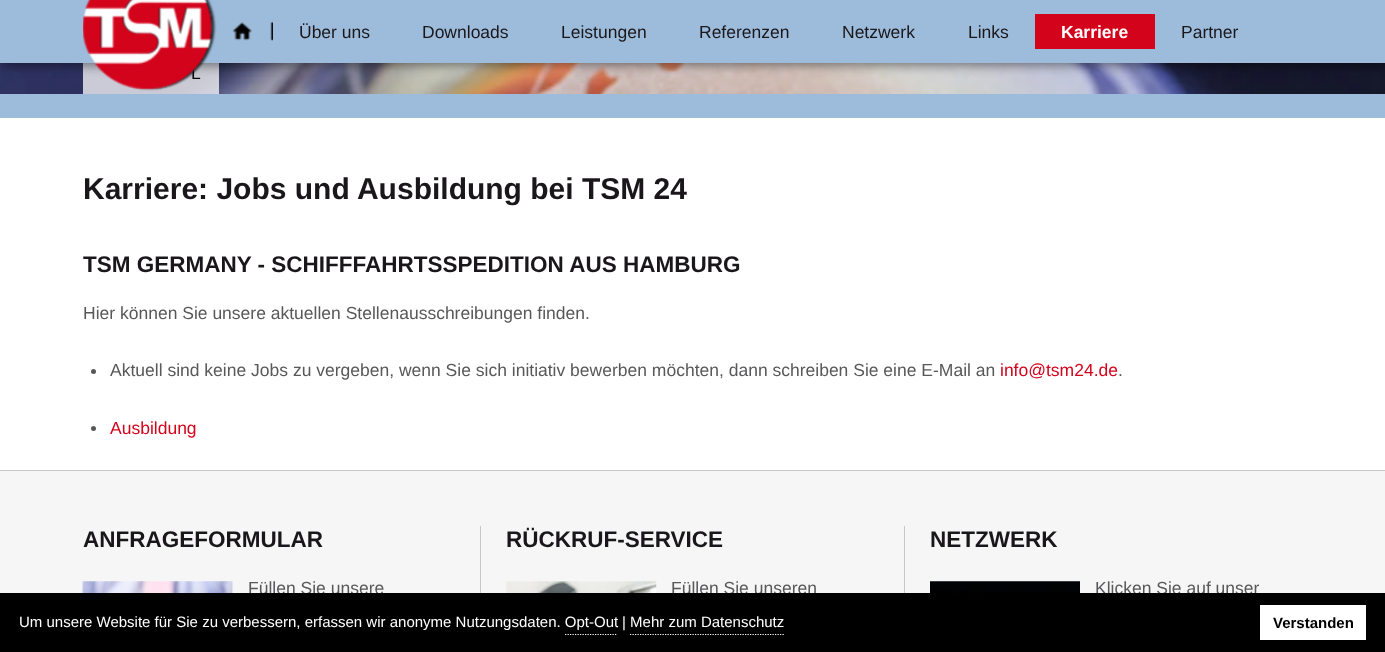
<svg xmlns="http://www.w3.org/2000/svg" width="1385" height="652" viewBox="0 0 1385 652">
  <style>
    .t1 { font: 17.5px Liberation Sans; fill: #0a0a0a; }
    .t2 { font: 17.5px Liberation Sans; fill: #1a171b; }
    .t3 { font: bold 17.5px Liberation Sans; fill: #fff; }
    .t4 { font: bold 30px Liberation Sans; fill: #1a171b; }
    .t5 { font: bold 22.5px Liberation Sans; fill: #1a171b; }
    .t6 { font: 17.5px Liberation Sans; fill: #58585a; }
    .t7 { font: 17.5px Liberation Sans; fill: #d3031c; }
    .t8 { font: 15px Liberation Sans; fill: #fff; }
    .t9 { font: bold 15px Liberation Sans; fill: #000; }
  </style>
  <rect width="100%" height="100%" fill="#fff"/>
  <image x="0" y="63" width="1385" height="31" href="images/3.png"/>
  <rect x="83" y="63" width="136" height="31" fill="#ffffffbf"/>
  <rect x="3" y="-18" width="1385" height="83" fill="#00000080" filter="blur(6px)"/>
  <rect x="0" y="0" width="1385" height="63" fill="#9dbcdb"/>
  <text x="191" y="79" class="t1">L</text>
  <image x="83" y="0" width="134" height="91" href="images/1.png"/>
  <image x="232" y="21" width="41" height="20" href="images/2.png"/>
  <text x="299" y="38" class="t2">Über uns</text>
  <text x="422" y="38" class="t2">Downloads</text>
  <text x="561" y="38" class="t2">Leistungen</text>
  <text x="699" y="38" class="t2">Referenzen</text>
  <text x="842" y="38" class="t2">Netzwerk</text>
  <text x="968" y="38" class="t2">Links</text>
  <rect x="1035" y="14" width="120" height="35" fill="#d3031c"/>
  <text x="1061" y="38" class="t3">Karriere</text>
  <text x="1181" y="38" class="t2">Partner</text>
  <rect x="0" y="94" width="1385" height="24" fill="#9dbcdb"/>
  <text x="83" y="199" class="t4">Karriere: Jobs und Ausbildung bei TSM 24</text>
  <text x="83" y="272" class="t5">TSM GERMANY - SCHIFFFAHRTSSPEDITION AUS HAMBURG</text>
  <text x="83" y="319" class="t6">Hier können Sie unsere aktuellen Stellenausschreibungen finden.</text>
  <circle cx="93.5" cy="371.5" r="2.5" fill="#58585a"/>
  <text x="110" y="376" class="t6">Aktuell sind keine Jobs zu vergeben, wenn Sie sich initiativ bewerben möchten, dann schreiben Sie eine E-Mail an</text>
  <text x="1000" y="376" class="t7">info@tsm24.de</text>
  <text x="1118" y="376" class="t6">.</text>
  <circle cx="93.5" cy="428.5" r="2.5" fill="#58585a"/>
  <text x="110" y="434" class="t7">Ausbildung</text>
  <rect x="0" y="471" width="1385" height="122" fill="#f6f6f6"/>
  <rect x="0" y="470" width="1385" height="1" fill="#c6c7c8"/>
  <text x="83" y="547" class="t5">ANFRAGEFORMULAR</text>
  <image x="82" y="581" width="151" height="12" href="images/4.png"/>
  <text x="248" y="594" class="t6">Füllen Sie unsere</text>
  <rect x="480" y="526" width="1" height="67" fill="#c6c7c8"/>
  <text x="506" y="547" class="t5">RÜCKRUF-SERVICE</text>
  <image x="506" y="581" width="151" height="12" href="images/5.png"/>
  <text x="671" y="594" class="t6">Füllen Sie unseren</text>
  <rect x="904" y="526" width="1" height="67" fill="#c6c7c8"/>
  <text x="930" y="547" class="t5">NETZWERK</text>
  <image x="930" y="581" width="150" height="12" href="images/6.png"/>
  <text x="1095" y="594" class="t6">Klicken Sie auf unser</text>
  <rect x="0" y="593" width="1385" height="59" fill="#000"/>
  <text x="19" y="627" class="t8">Um unsere Website für Sie zu verbessern, erfassen wir anonyme Nutzungsdaten. Opt-Out</text>
  <text x="622" y="627" class="t8">| Mehr zum Datenschutz</text>
  <path d="M565 634.5H617.5" fill="none" stroke="#fff" stroke-width="1.2" stroke-dasharray="1.25 1.25"/>
  <path d="M630 634.5H785" fill="none" stroke="#fff" stroke-width="1.2" stroke-dasharray="1.25 1.25"/>
  <rect x="1260" y="605" width="106" height="35" fill="#fff"/>
  <text x="1273" y="628" class="t9">Verstanden</text>
</svg>
